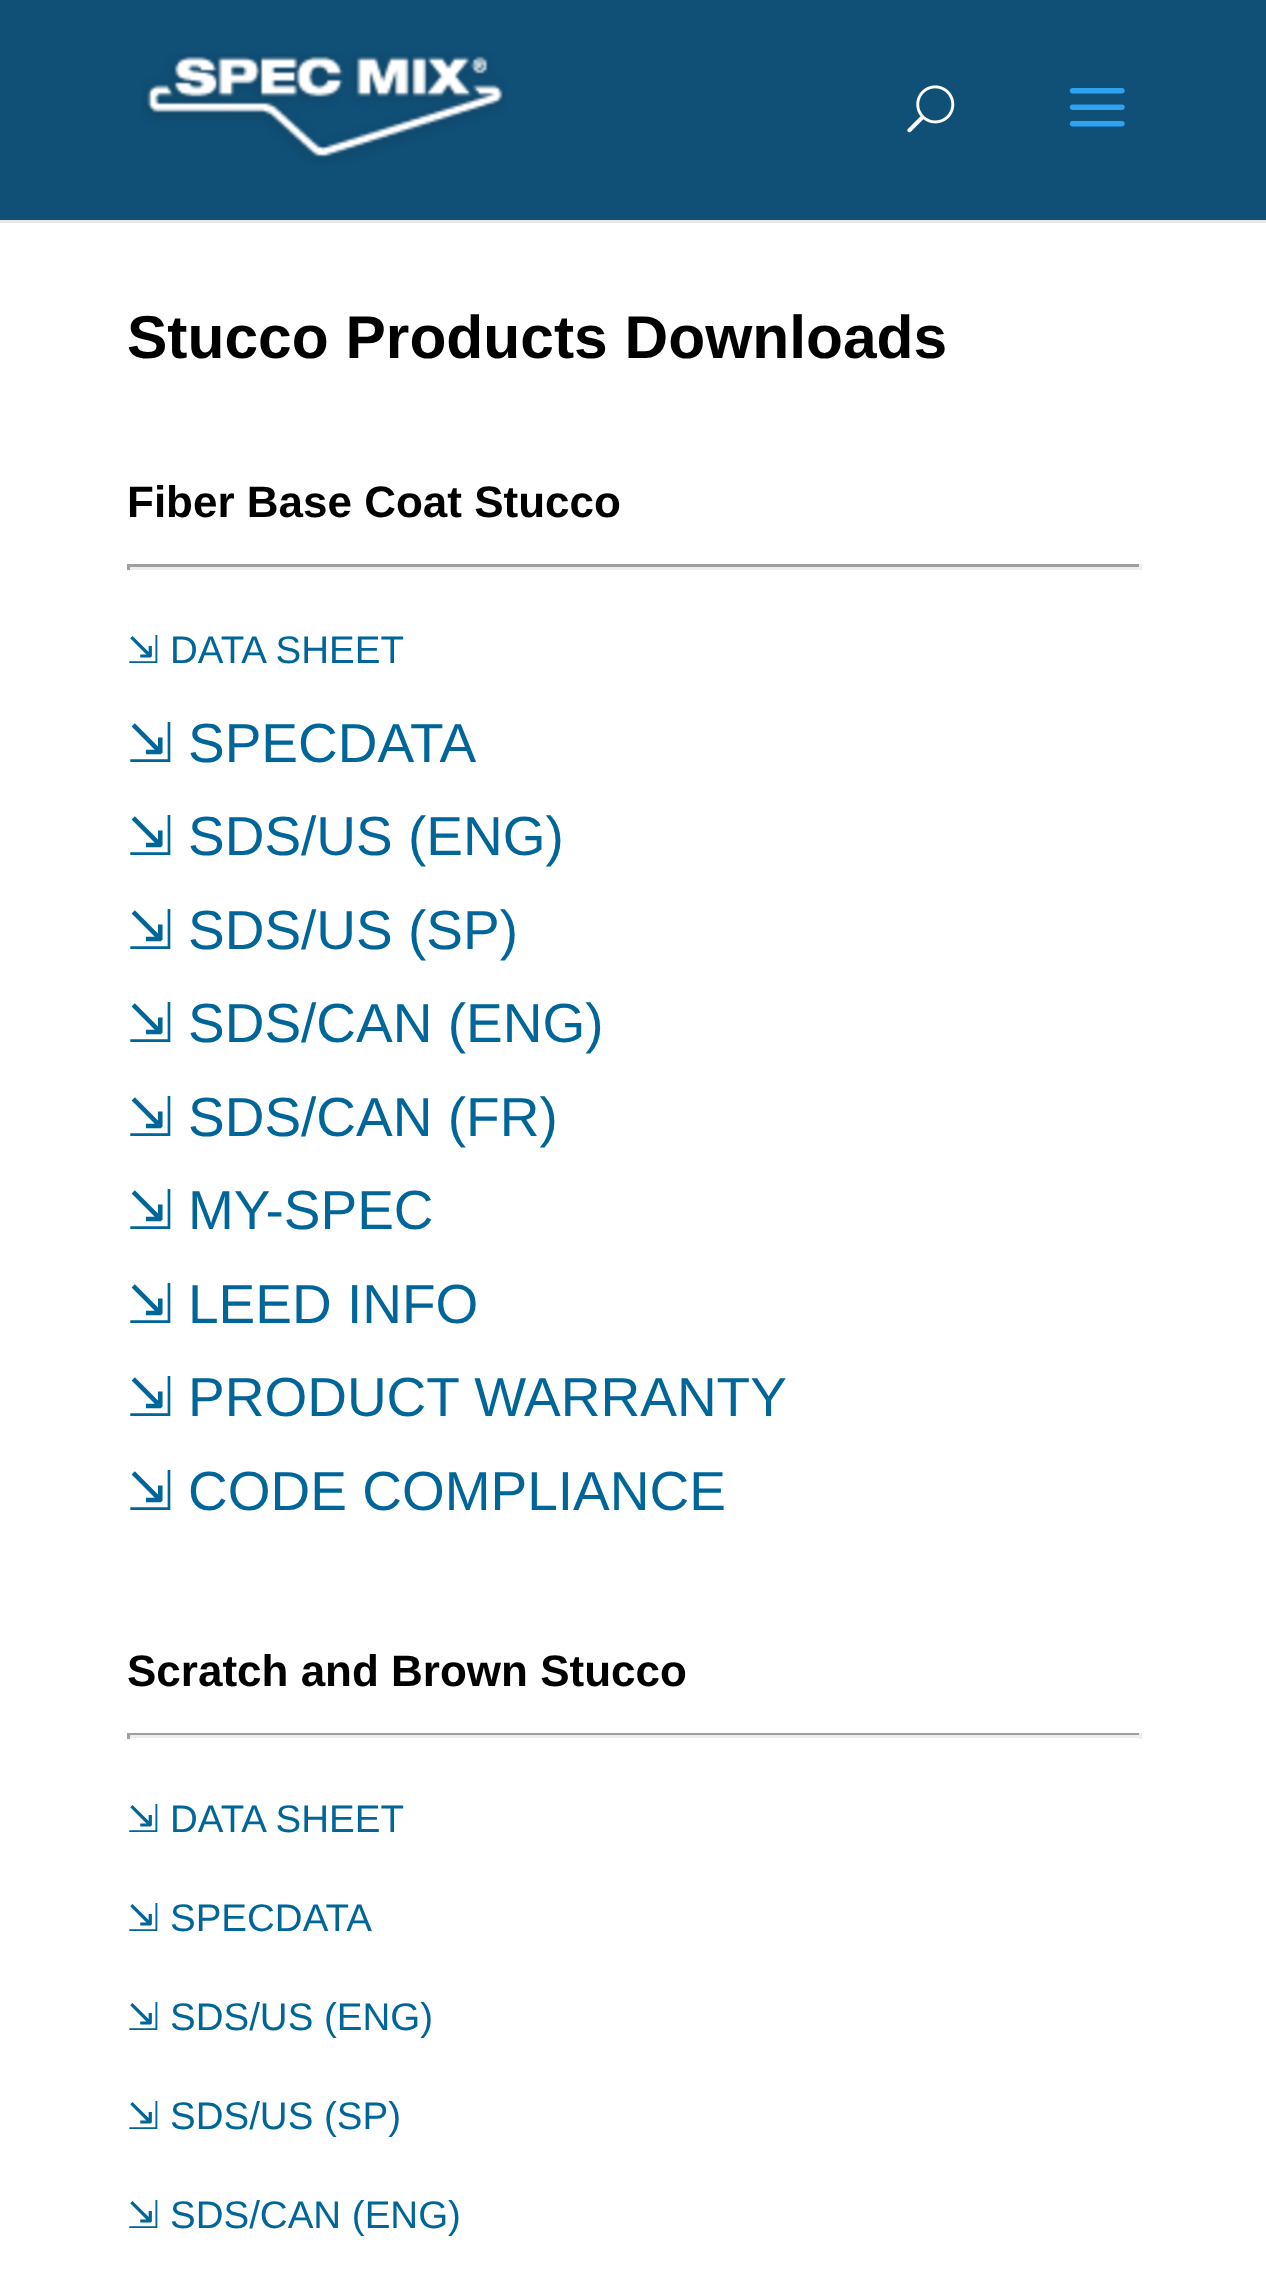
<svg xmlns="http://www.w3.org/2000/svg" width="1266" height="2282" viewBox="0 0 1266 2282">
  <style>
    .t1 { font: bold 60.5px Liberation Sans; fill: #000; }
    .t2 { font: bold 44px Liberation Sans; fill: #000; }
    .t3 { font: 38.5px DejaVu Sans; fill: #069; }
    .t4 { font: 38.5px Liberation Sans; fill: #069; }
    .t5 { font: 55px DejaVu Sans; fill: #069; }
    .t6 { font: 55px Liberation Sans; fill: #069; }
  </style>
  <rect width="100%" height="100%" fill="#fff"/>
  <path d="M0 220V223H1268V3V220Z" fill="#e6e6e6"/>
  <rect x="0" y="0" width="1266" height="220" fill="#105077"/>
  <image x="141" y="53" width="365" height="111" href="images/1.png"/>
  <image x="907" y="85" width="48" height="48" href="images/2.png"/>
  <image x="1069" y="88" width="56" height="39" href="images/3.png"/>
  <text x="127" y="358" class="t1">Stucco Products Downloads</text>
  <text x="127" y="517" class="t2">Fiber Base Coat Stucco</text>
  <rect x="127" y="564" width="1014" height="3" fill="#9f9f9f"/>
  <rect x="1139" y="564" width="3" height="6" fill="#eee"/>
  <rect x="127" y="567" width="1014" height="3" fill="#eee"/>
  <rect x="127" y="564" width="3" height="6" fill="#9f9f9f"/>
  <text x="127" y="663" class="t3">⇲</text>
  <text x="170" y="663" class="t4">DATA SHEET</text>
  <text x="127" y="762" class="t5">⇲</text>
  <text x="188" y="762" class="t6">SPECDATA</text>
  <text x="127" y="855" class="t5">⇲</text>
  <text x="188" y="855" class="t6">SDS/US (ENG)</text>
  <text x="127" y="949" class="t5">⇲</text>
  <text x="188" y="949" class="t6">SDS/US (SP)</text>
  <text x="127" y="1042" class="t5">⇲</text>
  <text x="188" y="1042" class="t6">SDS/CAN (ENG)</text>
  <text x="127" y="1136" class="t5">⇲</text>
  <text x="188" y="1136" class="t6">SDS/CAN (FR)</text>
  <text x="127" y="1229" class="t5">⇲</text>
  <text x="188" y="1229" class="t6">MY-SPEC</text>
  <text x="127" y="1323" class="t5">⇲</text>
  <text x="188" y="1323" class="t6">LEED INFO</text>
  <text x="127" y="1416" class="t5">⇲</text>
  <text x="188" y="1416" class="t6">PRODUCT WARRANTY</text>
  <text x="127" y="1510" class="t5">⇲</text>
  <text x="188" y="1510" class="t6">CODE COMPLIANCE</text>
  <text x="127" y="1686" class="t2">Scratch and Brown Stucco</text>
  <rect x="127" y="1733" width="1014" height="2" fill="#9f9f9f"/>
  <rect x="1139" y="1733" width="3" height="6" fill="#eee"/>
  <rect x="127" y="1735" width="1014" height="3" fill="#eee"/>
  <rect x="127" y="1733" width="3" height="6" fill="#9f9f9f"/>
  <text x="127" y="1832" class="t3">⇲</text>
  <text x="170" y="1832" class="t4">DATA SHEET</text>
  <text x="127" y="1931" class="t3">⇲</text>
  <text x="170" y="1931" class="t4">SPECDATA</text>
  <text x="127" y="2030" class="t3">⇲</text>
  <text x="170" y="2030" class="t4">SDS/US (ENG)</text>
  <text x="127" y="2129" class="t3">⇲</text>
  <text x="170" y="2129" class="t4">SDS/US (SP)</text>
  <text x="127" y="2228" class="t3">⇲</text>
  <text x="170" y="2228" class="t4">SDS/CAN (ENG)</text>
</svg>
